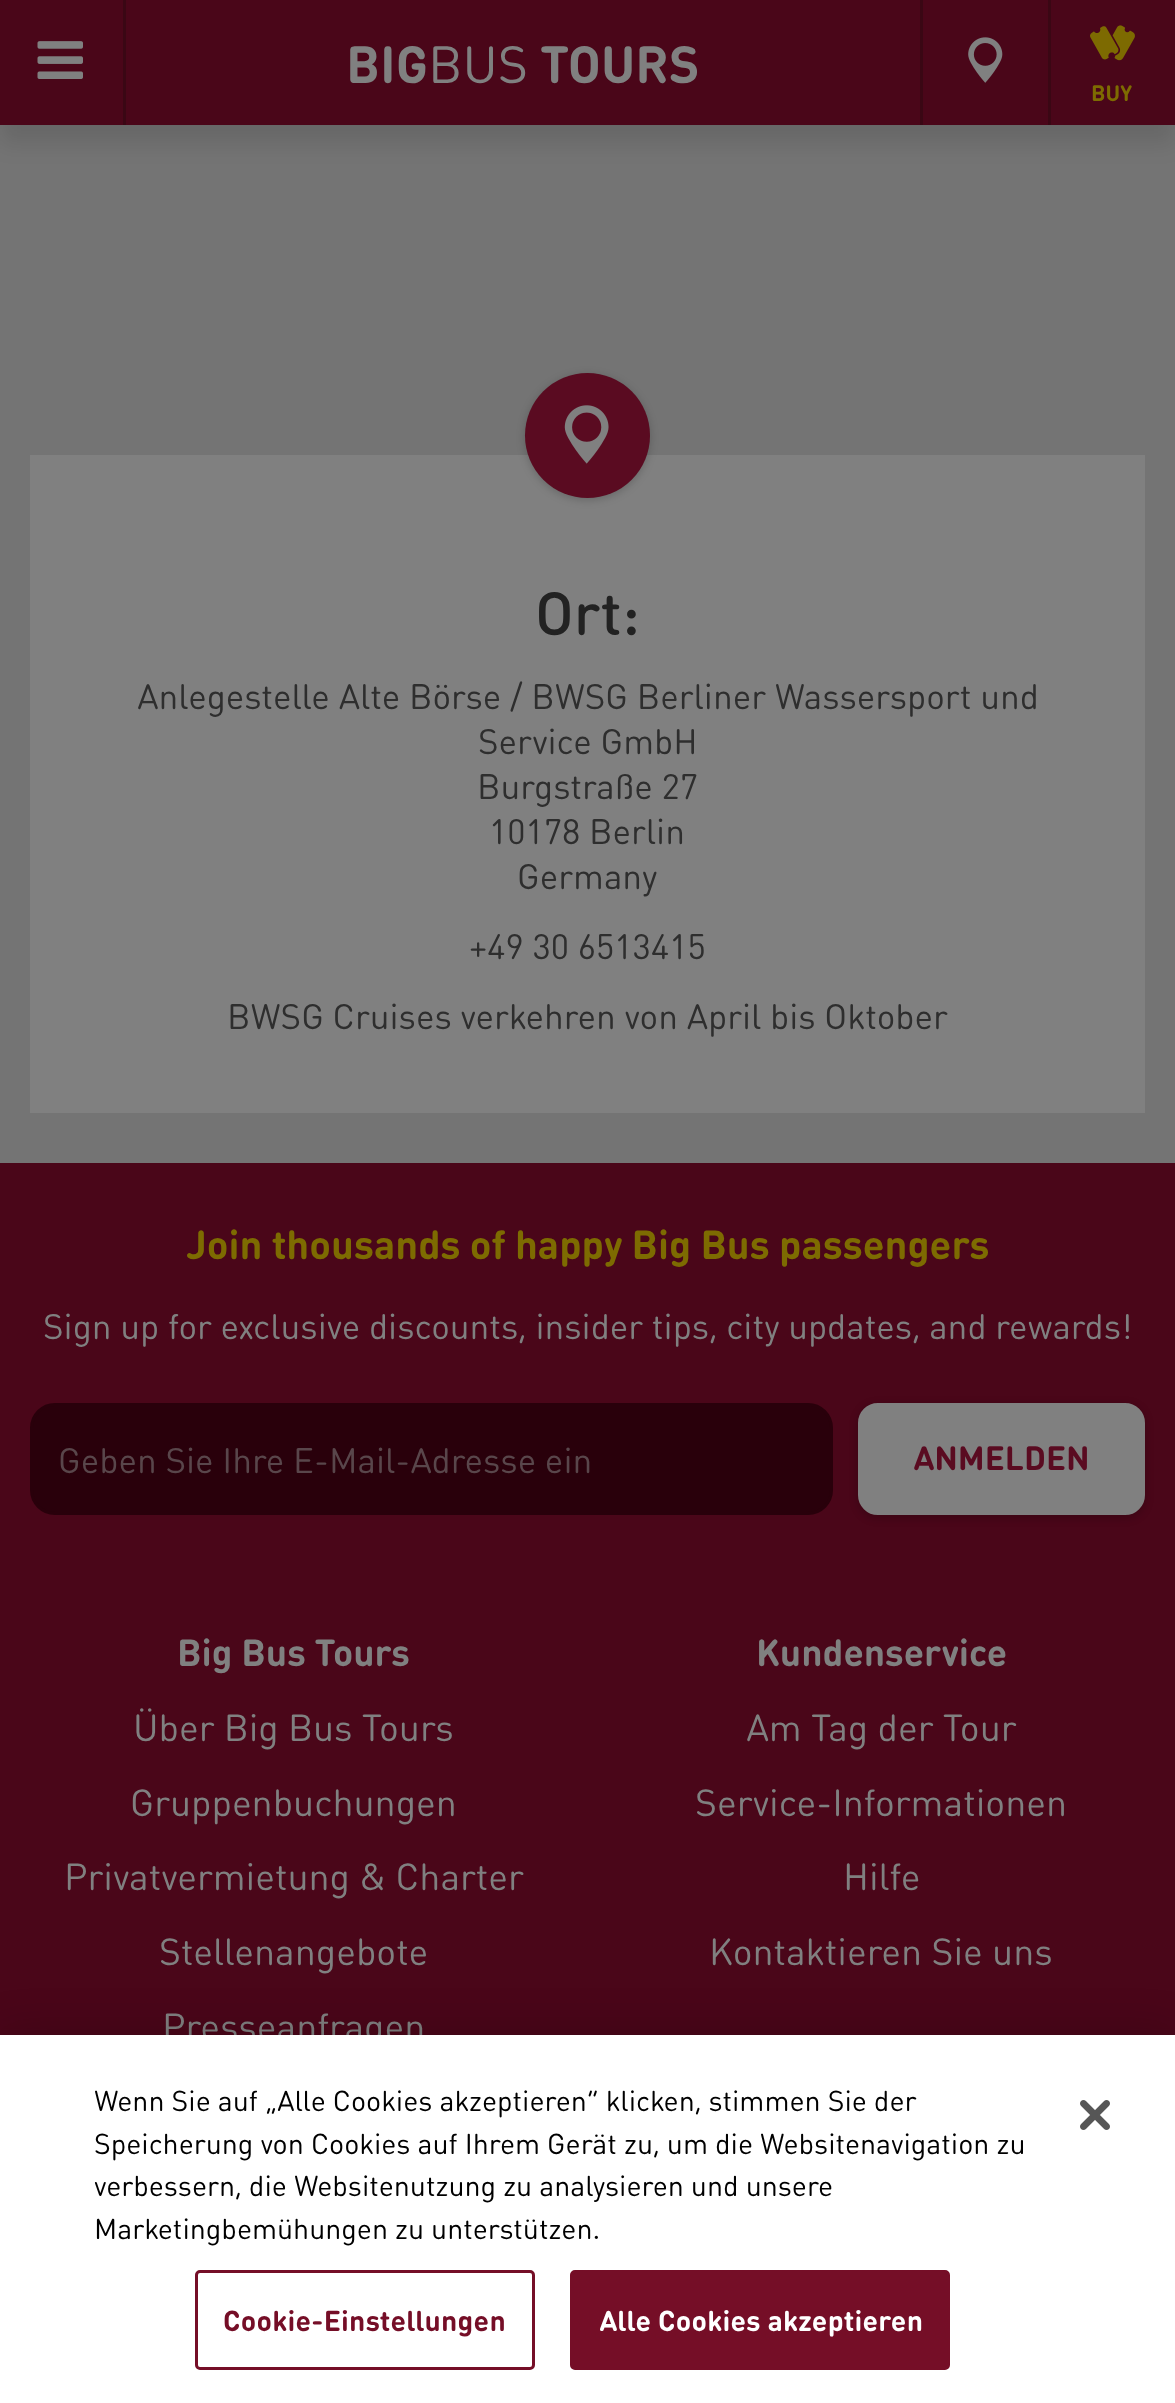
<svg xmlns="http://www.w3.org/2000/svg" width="1175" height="2403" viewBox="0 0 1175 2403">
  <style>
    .t1 { font: bold 51.5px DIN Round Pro; fill: #808080; }
    .t2 { font: 51.5px DIN Round Pro; fill: #808080; }
    .t3 { font: bold 22px DIN Round Pro; fill: #7d6b01; }
    .t4 { font: 500 60px DIN Round Pro; fill: #222; }
    .t5 { font: 35px DIN Round Pro; fill: #2e2e2e; }
    .t6 { font: bold 40px DIN Round Pro; fill: #7d6b01; }
    .t7 { font: 35px DIN Round Pro; fill: #808080; }
    .t8 { font: 35px DIN Round Pro; fill: #59464b; }
    .t9 { font: bold 33.25px DIN Round Pro; fill: #5a0b21; }
    .t10 { font: bold 37.3px DIN Round Pro; fill: #808080; }
    .t11 { font: 37.3px DIN Round Pro; fill: #808080; }
    .t12 { font: 28.45px DIN Round Pro; fill: #000; }
    .t13 { font: bold 28.45px DIN Round Pro; letter-spacing: 0.25px; fill: #750e27; }
    .t14 { font: bold 28.45px DIN Round Pro; letter-spacing: 0.25px; fill: #fff; }
  </style>
  <rect width="100%" height="100%" fill="#747474"/>
  <rect x="0" y="18" width="1175" height="125" fill="#0000001c" filter="blur(11px)"/>
  <rect x="0" y="0" width="1175" height="125" fill="#4a0619"/>
  <rect x="123" y="0" width="3" height="125" fill="#3a0714"/>
  <image x="37" y="41" width="46" height="38" href="images/1.png"/>
  <text x="346" y="83" class="t1">BIG</text>
  <text x="428" y="83" class="t2">BUS</text>
  <text x="540" y="83" class="t1">TOURS</text>
  <rect x="920" y="0" width="3" height="125" fill="#3a0714"/>
  <image x="968" y="37" width="35" height="46" href="images/2.png"/>
  <rect x="1048" y="0" width="3" height="125" fill="#3a0714"/>
  <image x="1090" y="25" width="45" height="36" href="images/3.png"/>
  <text x="1091" y="101" class="t3">BUY</text>
  <rect x="30" y="455" width="1115" height="658" fill="#808080"/>
  <rect x="525" y="375" width="125" height="125" rx="62.5" fill="#00000033" filter="blur(4px)"/>
  <circle cx="587.5" cy="435.5" r="62.5" fill="#5a0b21"/>
  <image x="564" y="405" width="45" height="59" href="images/4.png"/>
  <text x="535" y="635" class="t4">Ort:</text>
  <text x="137" y="709" class="t5">Anlegestelle Alte Börse / BWSG Berliner Wassersport und</text>
  <text x="478" y="754" class="t5">Service GmbH</text>
  <text x="477" y="799" class="t5">Burgstraße 27</text>
  <text x="489" y="844" class="t5">10178 Berlin</text>
  <text x="517" y="889" class="t5">Germany</text>
  <text x="469" y="959" class="t5">+49 30 6513415</text>
  <text x="227" y="1029" class="t5">BWSG Cruises verkehren von April bis Oktober</text>
  <rect x="0" y="1163" width="1175" height="872" fill="#4a0619"/>
  <text x="186" y="1259" class="t6">Join thousands of happy Big Bus passengers</text>
  <text x="43" y="1339" class="t7">Sign up for exclusive discounts, insider tips, city updates, and rewards!</text>
  <rect x="31.5" y="1404.5" width="800" height="109" rx="23.5" fill="#29000b" stroke="#29000b" stroke-width="3"/>
  <text x="58" y="1473" class="t8">Geben Sie Ihre E-Mail-Adresse ein</text>
  <rect x="858" y="1405" width="287" height="113" rx="20" fill="#00000033" filter="blur(4px)"/>
  <rect x="860.5" y="1405.5" width="282" height="107" rx="17.5" fill="#808080" stroke="#808080" stroke-width="5"/>
  <text x="913" y="1470" class="t9">ANMELDEN</text>
  <text x="177" y="1666" class="t10">Big Bus Tours</text>
  <text x="133" y="1741" class="t11">Über Big Bus Tours</text>
  <text x="130" y="1816" class="t11">Gruppenbuchungen</text>
  <text x="64" y="1890" class="t11">Privatvermietung &amp; Charter</text>
  <text x="159" y="1965" class="t11">Stellenangebote</text>
  <text x="162" y="2040" class="t11">Presseanfragen</text>
  <text x="756" y="1666" class="t10">Kundenservice</text>
  <text x="746" y="1741" class="t11">Am Tag der Tour</text>
  <text x="695" y="1816" class="t11">Service-Informationen</text>
  <text x="843" y="1890" class="t11">Hilfe</text>
  <text x="709" y="1965" class="t11">Kontaktieren Sie uns</text>
  <rect x="0" y="2035" width="1175" height="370" fill="#00000033" filter="blur(22.5px)"/>
  <rect x="0" y="2035" width="1175" height="368" fill="#fff"/>
  <text x="94" y="2111" class="t12">Wenn Sie auf „Alle Cookies akzeptieren“ klicken, stimmen Sie der</text>
  <text x="94" y="2154" class="t12">Speicherung von Cookies auf Ihrem Gerät zu, um die Websitenavigation zu</text>
  <text x="94" y="2196" class="t12">verbessern, die Websitenutzung zu analysieren und unsere</text>
  <text x="94" y="2239" class="t12">Marketingbemühungen zu unterstützen.</text>
  <rect x="196.5" y="2271.5" width="337" height="97" rx="3.5" fill="none" stroke="#750e27" stroke-width="3"/>
  <text x="223" y="2331" class="t13">Cookie-Einstellungen</text>
  <rect x="571.5" y="2271.5" width="377" height="97" rx="3.5" fill="#750e27" stroke="#750e27" stroke-width="3"/>
  <text x="599" y="2331" class="t14">Alle Cookies akzeptieren</text>
  <image x="1080" y="2100" width="30" height="30" href="images/5.png"/>
</svg>
